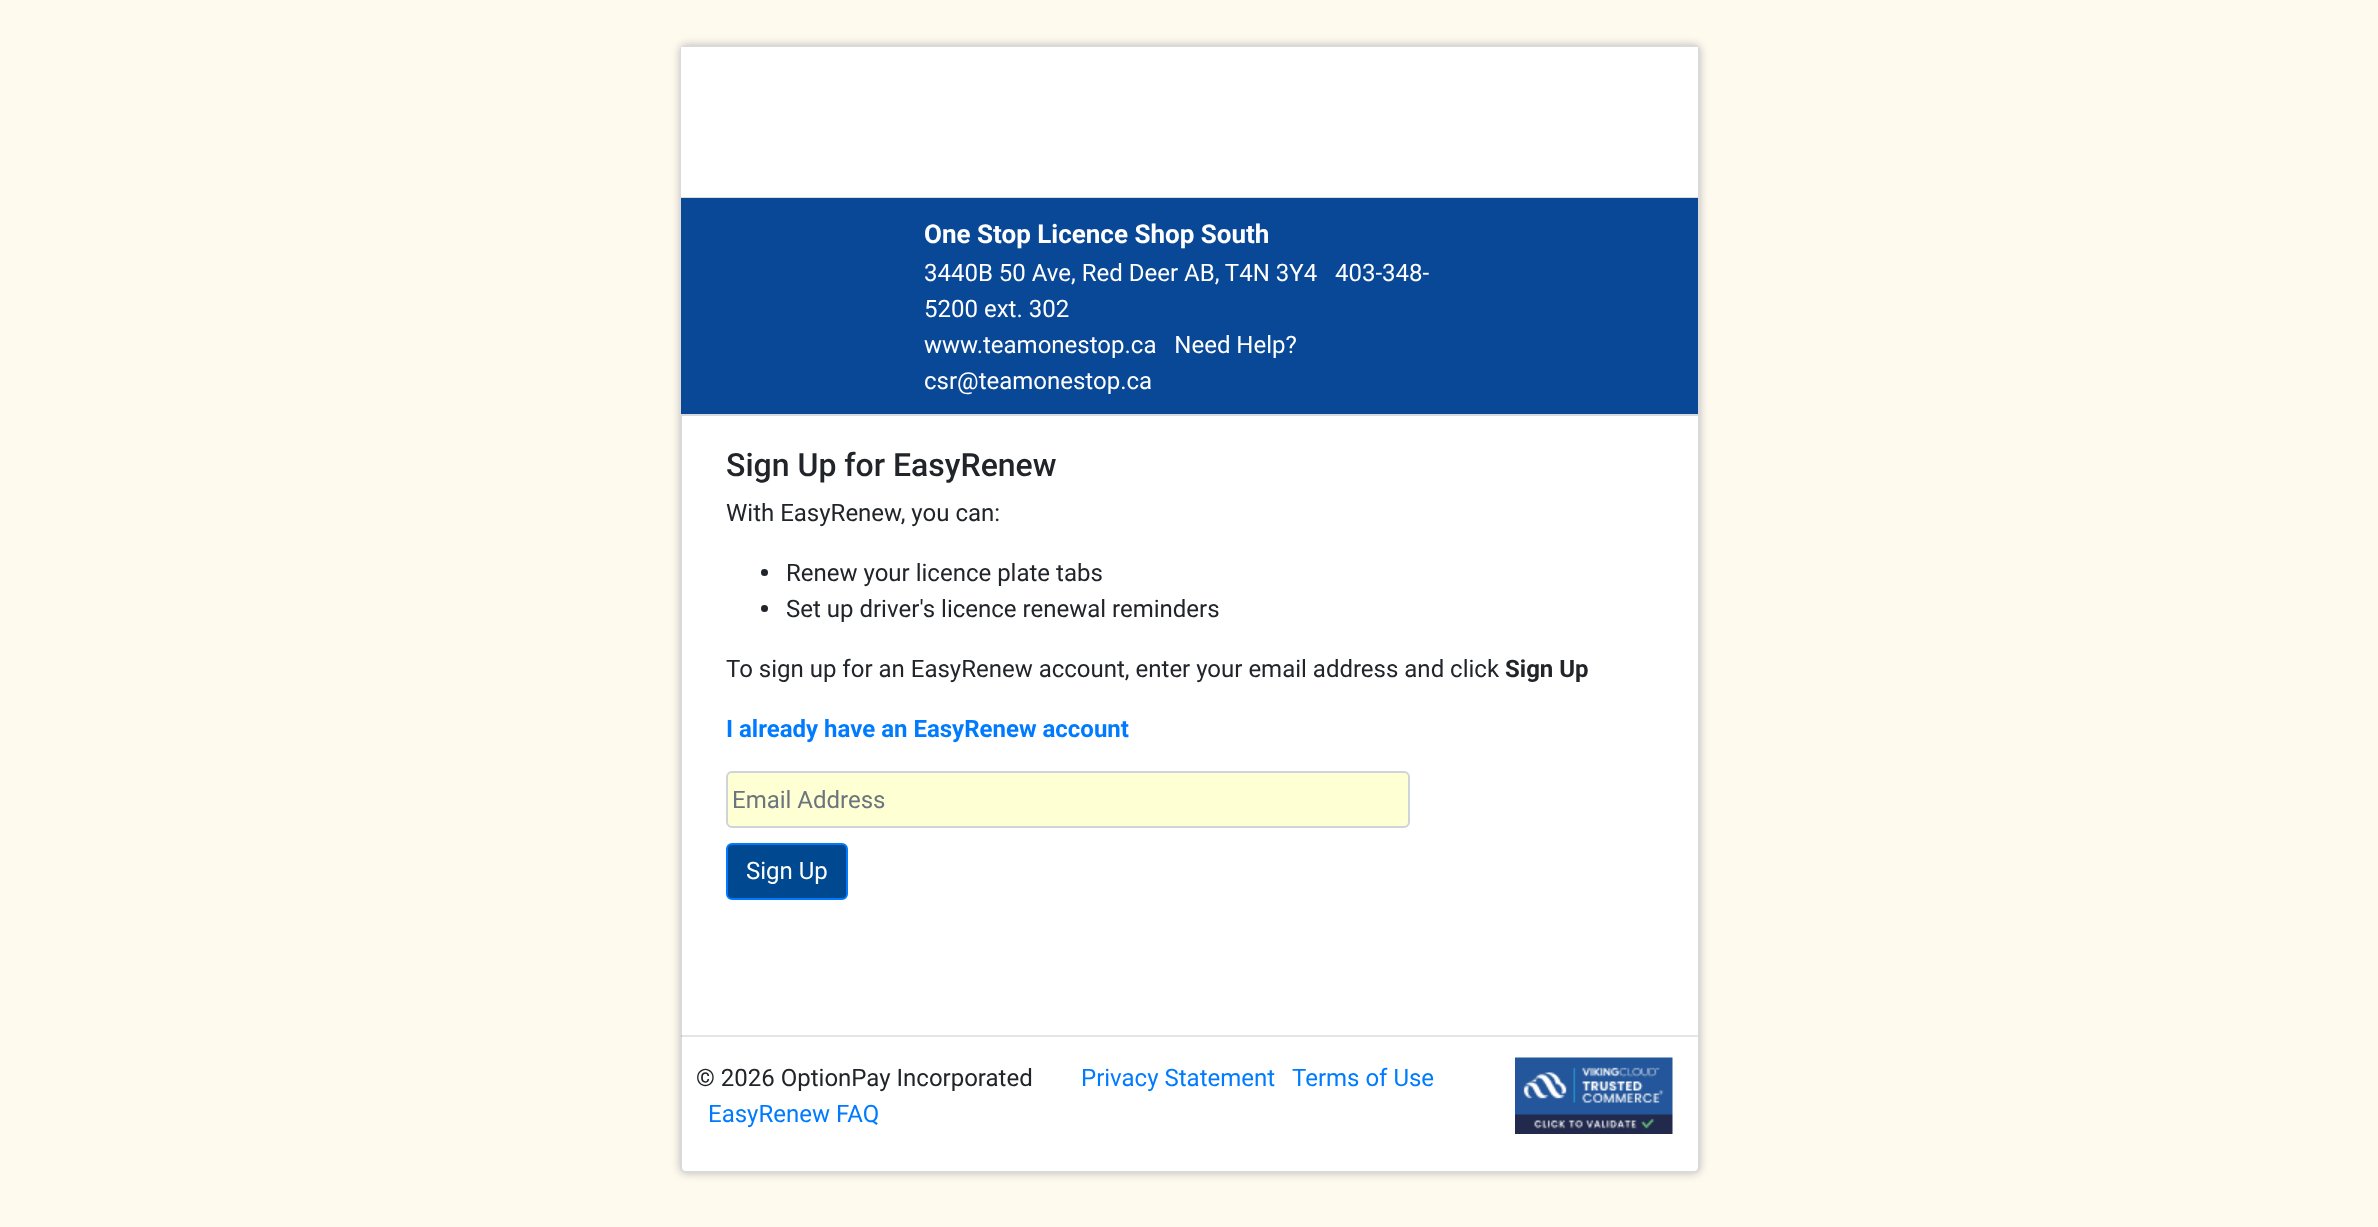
<svg xmlns="http://www.w3.org/2000/svg" width="2378" height="1227" viewBox="0 0 2378 1227">
  <style>
    .t1 { font: bold 26px Roboto; fill: #fff; }
    .t2 { font: 24px Roboto; fill: #fff; }
    .t3 { font: 500 32px Roboto; fill: #212529; }
    .t4 { font: 24px Roboto; fill: #212529; }
    .t5 { font: bold 24px Roboto; fill: #212529; }
    .t6 { font: bold 24px Roboto; fill: #007bff; }
    .t7 { font: 24px Roboto; fill: #6c757d; }
    .t8 { font: 24px Roboto; fill: #007bff; }
  </style>
  <rect width="100%" height="100%" fill="#fffaee"/>
  <rect x="680" y="45" width="1020" height="1128" rx="6" fill="#bababa" filter="blur(4px)"/>
  <rect x="681" y="46" width="1018" height="1126" rx="5" fill="#fff" stroke="#dadada" stroke-width="2"/>
  <rect x="681" y="47" width="1017" height="150" fill="#fff"/>
  <rect x="681" y="197" width="1017" height="1" fill="#dadada"/>
  <rect x="681" y="198" width="1017" height="216" fill="#084897"/>
  <rect x="681" y="414" width="1017" height="2" fill="#dadada"/>
  <text x="924" y="243" class="t1">One Stop Licence Shop South</text>
  <text x="924" y="281" class="t2" xml:space="preserve">3440B 50 Ave, Red Deer AB, T4N 3Y4   403-348-</text>
  <text x="924" y="317" class="t2">5200 ext. 302</text>
  <text x="924" y="353" class="t2" xml:space="preserve">www.teamonestop.ca   Need Help?</text>
  <text x="924" y="389" class="t2">csr@teamonestop.ca</text>
  <text x="726" y="476" class="t3">Sign Up for EasyRenew</text>
  <text x="726" y="521" class="t4">With EasyRenew, you can:</text>
  <circle cx="764.5" cy="572.5" r="3.5" fill="#212529"/>
  <text x="786" y="581" class="t4">Renew your licence plate tabs</text>
  <circle cx="764.5" cy="608.5" r="3.5" fill="#212529"/>
  <text x="786" y="617" class="t4">Set up driver's licence renewal reminders</text>
  <text x="726" y="677" class="t4">To sign up for an EasyRenew account, enter your email address and click</text>
  <text x="1505" y="677" class="t5">Sign Up</text>
  <text x="726" y="737" class="t6">I already have an EasyRenew account</text>
  <rect x="727" y="772" width="682" height="55" rx="5" fill="#ffffd4" stroke="#ced4da" stroke-width="2"/>
  <text x="732" y="808" class="t7">Email Address</text>
  <rect x="727" y="844" width="120" height="55" rx="5" fill="#004991" stroke="#007bff" stroke-width="2"/>
  <text x="746" y="879" class="t2">Sign Up</text>
  <rect x="681" y="1035" width="1017" height="2" fill="#0000001a"/>
  <text x="696" y="1086" class="t4">© 2026 OptionPay Incorporated</text>
  <text x="1081" y="1086" class="t8">Privacy Statement</text>
  <text x="1292" y="1086" class="t8">Terms of Use</text>
  <text x="708" y="1122" class="t8">EasyRenew FAQ</text>
  <image x="1515" y="1057" width="158" height="77" href="images/1.png"/>
</svg>
